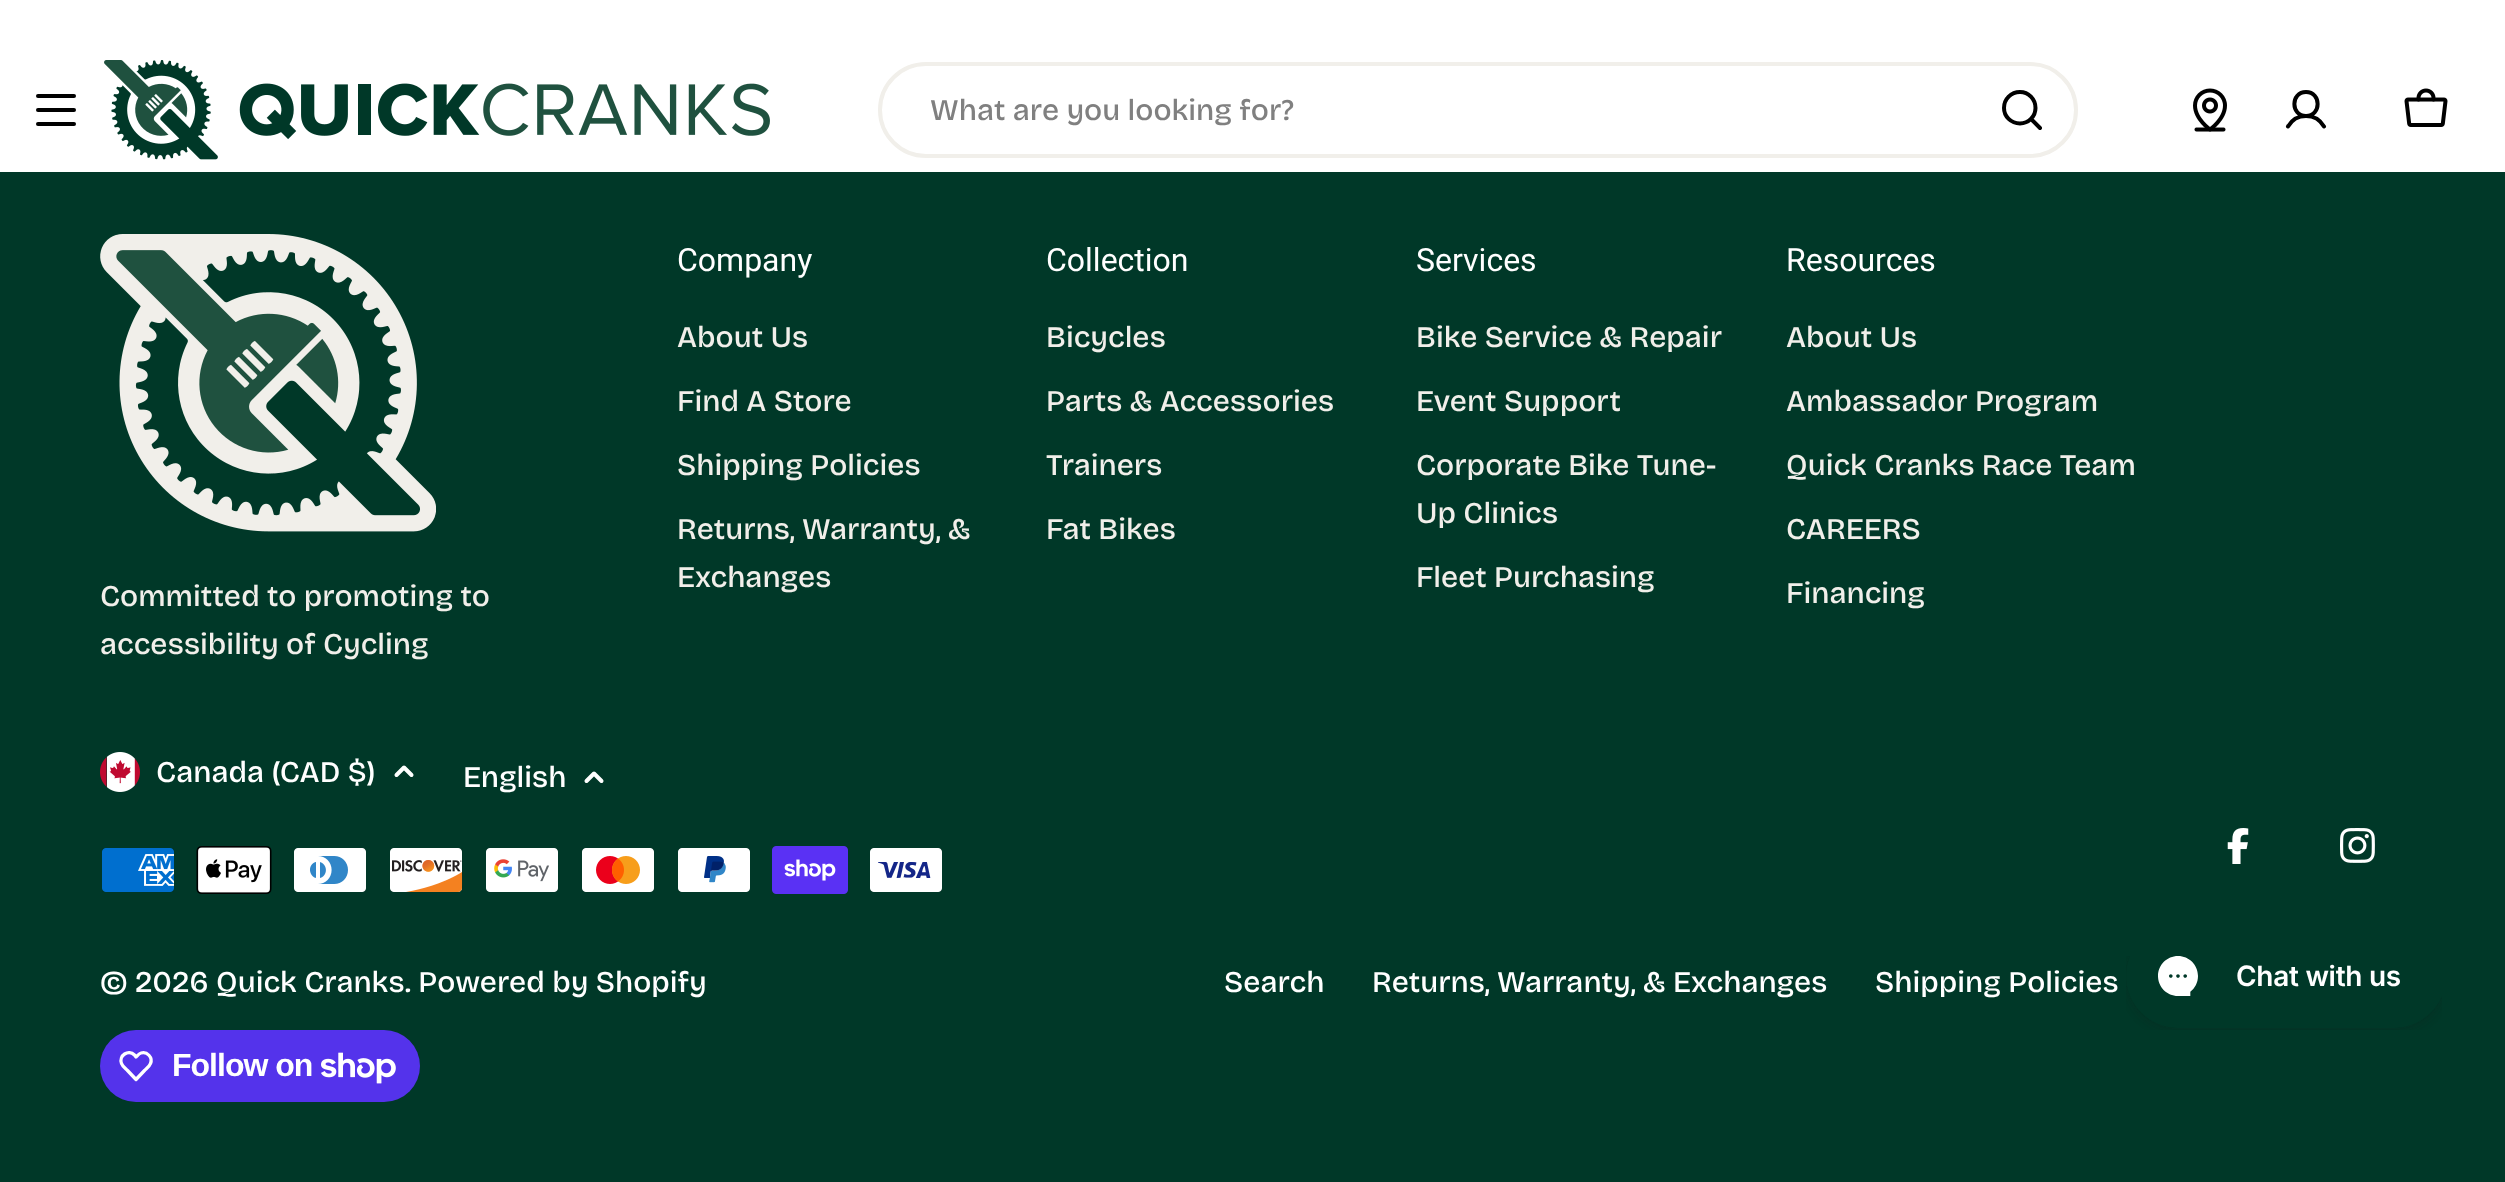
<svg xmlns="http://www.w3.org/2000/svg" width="2505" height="1182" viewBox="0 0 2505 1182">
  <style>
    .t1 { font: 500 30px Bricolage Grotesque; fill: #808080; }
    .t2 { font: 32px Roboto; fill: #fff; }
    .t3 { font: 500 30px Bricolage Grotesque; fill: #f1efea; }
    .t4 { font: 500 30px Bricolage Grotesque; fill: #fff; }
    .t5 { font: bold 32px Liberation Sans; letter-spacing: -1px; fill: #fff; }
  </style>
  <rect width="100%" height="100%" fill="#003828"/>
  <rect x="0" y="0" width="2505" height="172" fill="#fff"/>
  <rect x="36" y="108" width="40" height="4" rx="2" fill="#000"/>
  <rect x="36" y="94" width="40" height="4" rx="2" fill="#000"/>
  <rect x="36" y="122" width="40" height="4" rx="2" fill="#000"/>
  <image x="104" y="60" width="666" height="100" href="images/1.png"/>
  <rect x="880" y="64" width="1196" height="92" rx="46" fill="none" stroke="#f1efea" stroke-width="4"/>
  <text x="930" y="120" class="t1">What are you looking for?</text>
  <path d="M2020 123.5C2028.5 123.5 2035.5 116.5 2035.5 108C2035.5 99 2028.5 92 2020 92C2011 92 2004 99 2004 108C2004 116.5 2011 123.5 2020 123.5ZM2031 119L2040 128" fill="none" stroke="#000" stroke-width="4" stroke-linecap="round" stroke-linejoin="round"/>
  <image x="2193" y="88" width="34" height="44" href="images/2.png"/>
  <path d="M2306 116C2321.5 116 2321.5 92 2306 92C2290.5 92 2290.5 116 2306 116ZM2288 126.5C2296 112.5 2316 112.5 2324 126.5" fill="none" stroke="#000" stroke-width="4" stroke-linecap="round" stroke-linejoin="round"/>
  <image x="2404" y="88" width="44" height="39" href="images/3.png"/>
  <text x="677" y="271" class="t2">Company</text>
  <text x="677" y="347" class="t3">About Us</text>
  <text x="677" y="411" class="t3">Find A Store</text>
  <text x="677" y="475" class="t3">Shipping Policies</text>
  <text x="677" y="539" class="t3">Returns, Warranty, &amp;</text>
  <text x="677" y="587" class="t3">Exchanges</text>
  <text x="1046" y="271" class="t2">Collection</text>
  <text x="1046" y="347" class="t3">Bicycles</text>
  <text x="1046" y="411" class="t3">Parts &amp; Accessories</text>
  <text x="1046" y="475" class="t3">Trainers</text>
  <text x="1046" y="539" class="t3">Fat Bikes</text>
  <text x="1416" y="271" class="t2">Services</text>
  <text x="1416" y="347" class="t3">Bike Service &amp; Repair</text>
  <text x="1416" y="411" class="t3">Event Support</text>
  <text x="1416" y="475" class="t3">Corporate Bike Tune-</text>
  <text x="1416" y="523" class="t3">Up Clinics</text>
  <text x="1416" y="587" class="t3">Fleet Purchasing</text>
  <text x="1786" y="271" class="t2">Resources</text>
  <text x="1786" y="347" class="t3">About Us</text>
  <text x="1786" y="411" class="t3">Ambassador Program</text>
  <text x="1786" y="475" class="t3">Quick Cranks Race Team</text>
  <text x="1786" y="539" class="t3">CAREERS</text>
  <text x="1786" y="603" class="t3">Financing</text>
  <image x="100" y="234" width="336" height="298" href="images/4.png"/>
  <text x="100" y="606" class="t3">Committed to promoting to</text>
  <text x="100" y="654" class="t3">accessibility of Cycling</text>
  <image x="100" y="752" width="40" height="40" href="images/5.png"/>
  <text x="156" y="782" class="t4">Canada (CAD $)</text>
  <path d="M396.5 775L404 767.5L411.5 775" fill="none" stroke="#fff" stroke-width="4" stroke-linecap="round" stroke-linejoin="round"/>
  <text x="463" y="787" class="t4">English</text>
  <path d="M586.5 781L594 773.5L601.5 781" fill="none" stroke="#fff" stroke-width="4" stroke-linecap="round" stroke-linejoin="round"/>
  <image x="102" y="848" width="72" height="44" href="images/6.png"/>
  <image x="196" y="846" width="76" height="48" href="images/7.png"/>
  <image x="294" y="848" width="72" height="44" href="images/8.png"/>
  <image x="390" y="848" width="73" height="44" href="images/9.png"/>
  <image x="486" y="848" width="72" height="44" href="images/10.png"/>
  <image x="582" y="848" width="72" height="44" href="images/11.png"/>
  <image x="678" y="848" width="72" height="44" href="images/12.png"/>
  <image x="772" y="846" width="76" height="48" href="images/13.png"/>
  <image x="870" y="848" width="72" height="44" href="images/14.png"/>
  <image x="2227" y="828" width="22" height="36" href="images/15.png"/>
  <image x="2340" y="828" width="35" height="35" href="images/16.png"/>
  <text x="100" y="992" class="t4">© 2026 Quick Cranks</text>
  <text x="405" y="992" class="t4">. Powered by Shopify</text>
  <rect x="100" y="1030" width="320" height="72" rx="36" fill="#5433eb"/>
  <path d="M134.5 1055L136 1057C137.5 1055.5 139 1053.5 141 1053C147 1051 153 1057.5 150.5 1063.5C149.5 1066.5 146.5 1068.5 144.5 1070.5L136 1079.5L127.5 1070.5C125.5 1068.5 122.5 1066.5 121.5 1063.5C118.5 1055.5 128.5 1049 134.5 1055Z" fill="none" stroke="#fff" stroke-width="3.3" stroke-linejoin="round"/>
  <text x="172" y="1076" class="t5">Follow on</text>
  <image x="321" y="1052" width="75" height="32" href="images/17.png"/>
  <text x="1224" y="992" class="t4">Search</text>
  <text x="1372" y="992" class="t4">Returns, Warranty, &amp; Exchanges</text>
  <text x="1875" y="992" class="t4">Shipping Policies</text>
  <image x="2126" y="956" width="316" height="74" href="images/18.png"/>
</svg>
